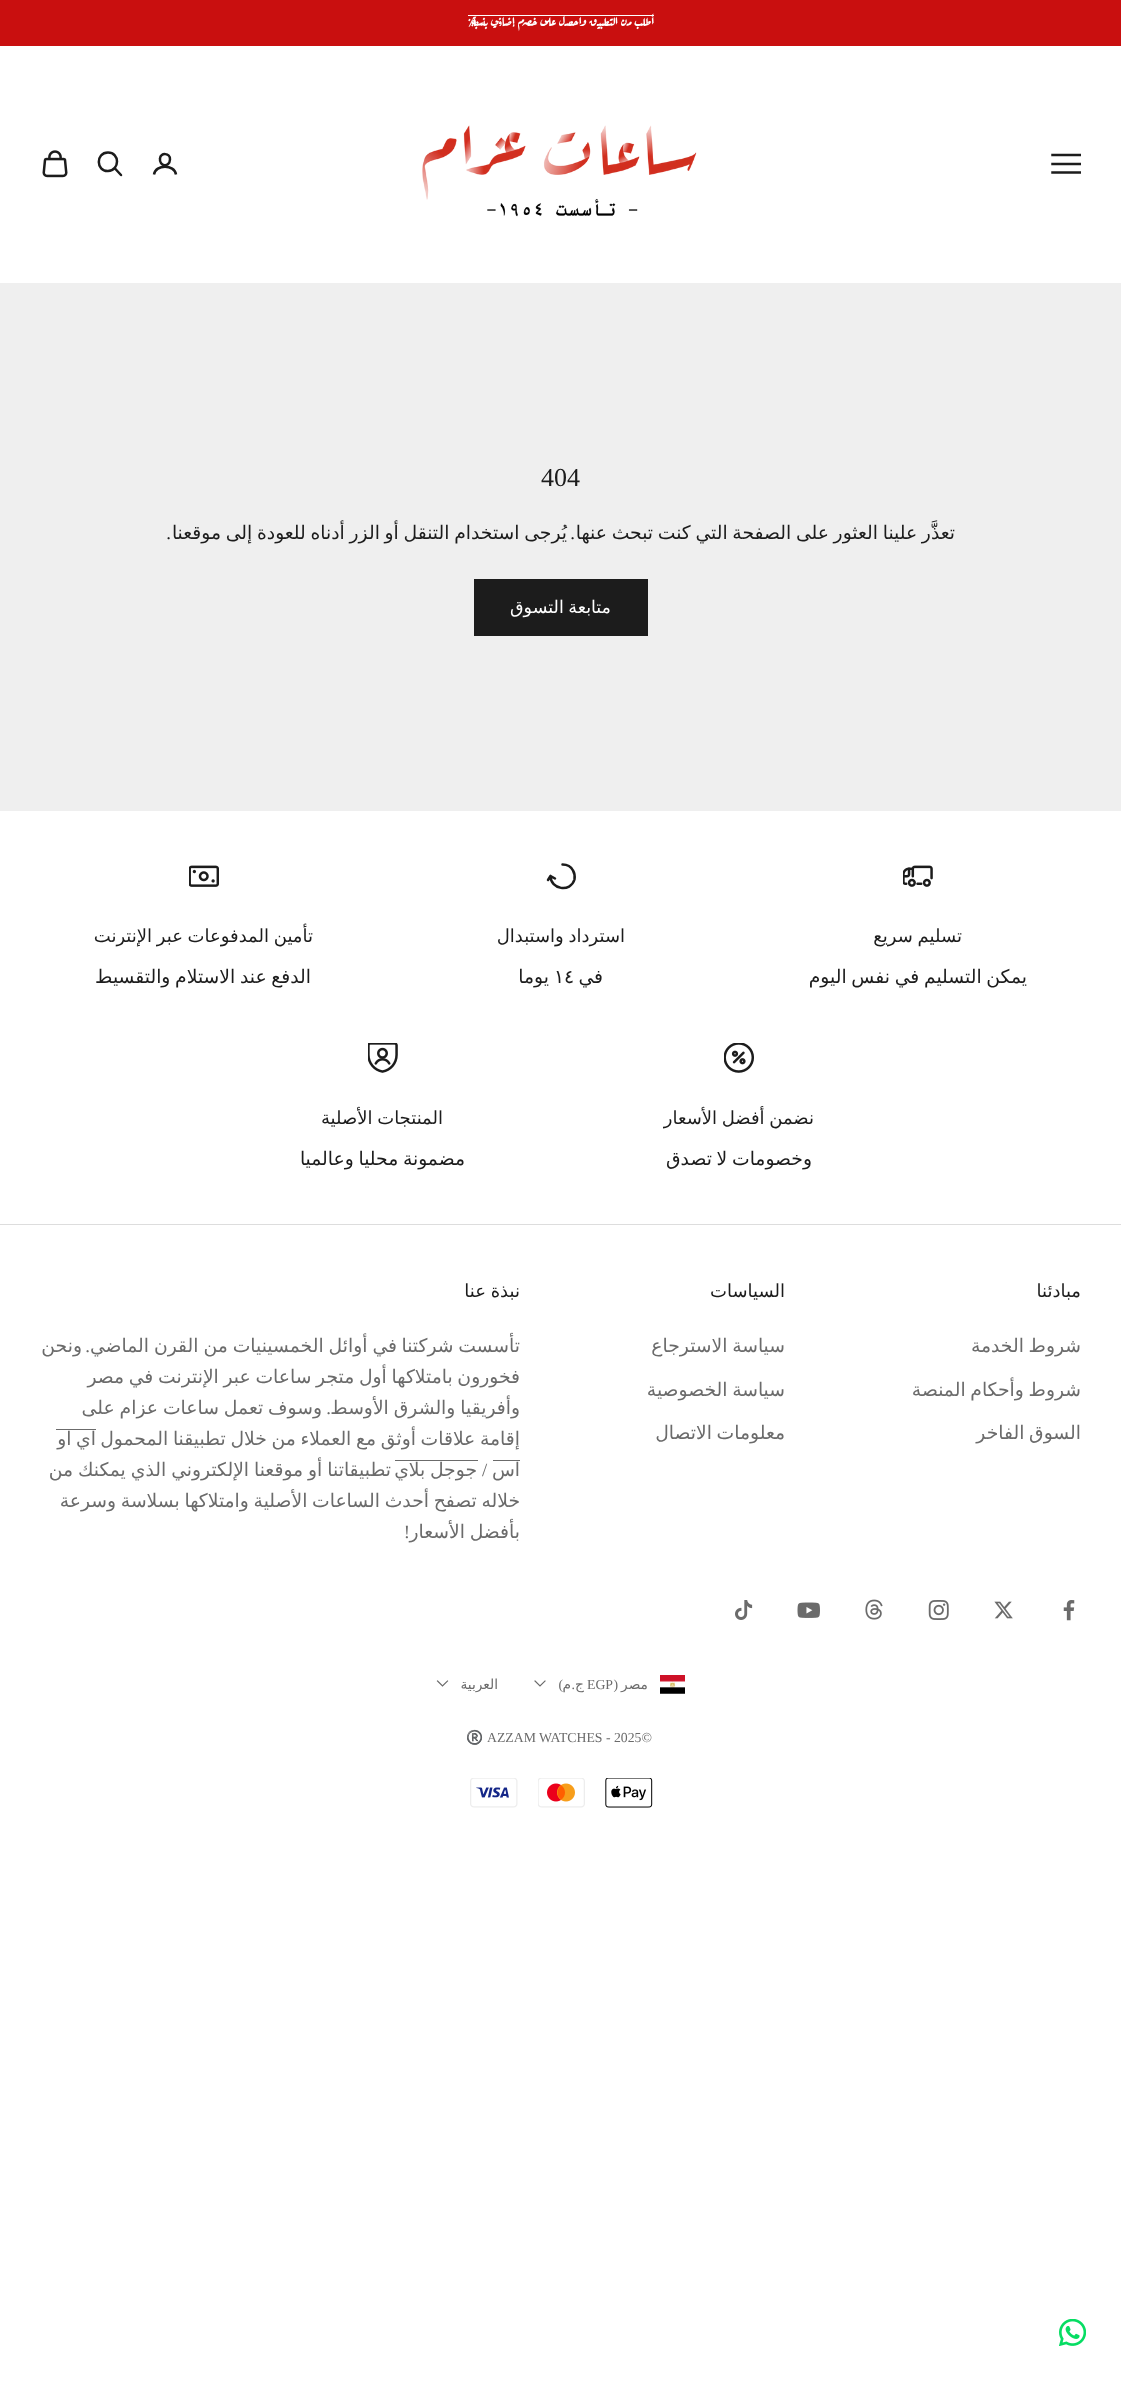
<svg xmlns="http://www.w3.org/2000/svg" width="1121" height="2381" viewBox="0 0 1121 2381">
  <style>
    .t1 { font: bold 12.5px Aref Ruqaa; direction: rtl; fill: #fff; }
    .t2 { font: bold 12.5px Aref Ruqaa; fill: #fff; }
    .t3 { font: 26px Liberation Serif; fill: #1c1c1c; }
    .t4 { font: 18.75px DejaVu Sans; direction: rtl; fill: #1c1c1c; }
    .t5 { font: 18.75px Liberation Serif; direction: rtl; fill: #1c1c1c; }
    .t6 { font: 17.5px DejaVu Sans; direction: rtl; fill: #fff; }
    .t7 { font: 18px DejaVu Sans; direction: rtl; fill: #1c1c1c; }
    .t8 { font: 18.75px DejaVu Sans; fill: #1c1c1c; }
    .t9 { font: 18.75px DejaVu Sans; direction: rtl; fill: #6b6b6b; }
    .t10 { font: 18.75px Liberation Serif; direction: rtl; fill: #6b6b6b; }
    .t11 { font: 18.75px Liberation Serif; fill: #6b6b6b; }
    .t12 { font: 13.75px DejaVu Sans; direction: rtl; fill: #6b6b6b; }
    .t13 { font: 13.75px Liberation Serif; direction: rtl; fill: #6b6b6b; }
    .t14 { font: 13.75px Liberation Serif; fill: #6b6b6b; }
    .t15 { font: 13.75px Noto Color Emoji; fill: #6b6b6b; }
  </style>
  <defs>
    <clipPath id="clip1"><rect x="1051" y="149" width="30" height="30"/></clipPath>
  </defs>
  <rect width="100%" height="100%" fill="#fff"/>
  <rect x="0" y="0" width="1121" height="46" fill="#c90f0f"/>
  <rect x="468" y="15" width="186" height="1" fill="#fff"/>
  <text x="654" y="26" word-spacing="1.25" class="t1">أطلب من التطبيق واحصل على خصم إضافي بنسبة</text>
  <text x="468" y="26" class="t2">٪١٠</text>
  <g clip-path="url(#clip1)">
    <path d="M1052.5 172.5H1080M1052.5 164H1080M1052.5 155H1080" fill="none" stroke="#1c1c1c" stroke-width="2.5" stroke-linecap="square"/>
  </g>
  <image x="422" y="125" width="275" height="92" href="images/1.png"/>
  <path d="M170 159.5C169.5 168 159 166.5 160 158.5C160.5 152 170.5 153 170 159.5Z" fill="none" stroke="#1c1c1c" stroke-width="2.5" stroke-linecap="round" stroke-linejoin="round"/>
  <path d="M154 174.5C155.5 164 174.5 164 176 174.5" fill="none" stroke="#1c1c1c" stroke-width="2.5"/>
  <path d="M108 152.5C95.5 152.5 96 171.5 108 171C120 170.5 120 152.5 108 152.5Z" fill="none" stroke="#1c1c1c" stroke-width="2.5"/>
  <path d="M115 168.5L121 175" fill="none" stroke="#1c1c1c" stroke-width="2.5" stroke-linecap="round"/>
  <image x="42" y="150" width="26" height="28" href="images/2.png"/>
  <rect x="0" y="283" width="1121" height="528" fill="#efefef"/>
  <text x="541" y="486" class="t3">404</text>
  <text x="955" y="539" word-spacing="-1.25" class="t4">تعذَّر علينا العثور على الصفحة التي كنت تبحث عنها</text>
  <text x="575" y="539" class="t5">.</text>
  <text x="567" y="539" word-spacing="-1.25" class="t4">يُرجى استخدام التنقل أو الزر أدناه للعودة إلى موقعنا</text>
  <text x="171" y="539" class="t5">.</text>
  <rect x="474.5" y="579.5" width="173" height="56" fill="#1c1c1c" stroke="#1c1c1c"/>
  <text x="611" y="613" word-spacing="-1" class="t6">متابعة التسوق</text>
  <image x="903" y="865" width="30" height="22" href="images/3.png"/>
  <text x="962" y="942" word-spacing="-1" class="t7">تسليم سريع</text>
  <text x="1027" y="983" word-spacing="-1.25" class="t4">يمكن التسليم في نفس اليوم</text>
  <path d="M548 880L550.5 876L555 878.5M562.5 864.5C567 864.5 571 866.5 573 870.5C574.5 873 575 876.5 574.5 879.5C570.5 893 550.5 889.5 550.5 876" fill="none" stroke="#1c1c1c" stroke-width="2.5" stroke-linecap="round" stroke-linejoin="round"/>
  <text x="625" y="942" word-spacing="-1" class="t7">استرداد واستبدال</text>
  <text x="603" y="983" class="t4">في</text>
  <text x="554" y="983" class="t8">١٤</text>
  <text x="549" y="983" class="t4">يوما</text>
  <image x="189" y="865" width="30" height="22" href="images/4.png"/>
  <text x="313" y="942" word-spacing="-1" class="t7">تأمين المدفوعات عبر الإنترنت</text>
  <text x="311" y="983" word-spacing="-1.25" class="t4">الدفع عند الاستلام والتقسيط</text>
  <image x="724" y="1043" width="30" height="30" href="images/5.png"/>
  <text x="814" y="1124" word-spacing="-1" class="t7">نضمن أفضل الأسعار</text>
  <text x="812" y="1165" word-spacing="-1.25" class="t4">وخصومات لا تصدق</text>
  <image x="368" y="1043" width="30" height="30" href="images/6.png"/>
  <text x="443" y="1124" word-spacing="-1" class="t7">المنتجات الأصلية</text>
  <text x="465" y="1165" word-spacing="-1.25" class="t4">مضمونة محليا وعالميا</text>
  <rect x="0" y="1224" width="1121" height="1" fill="#ddd"/>
  <text x="1081" y="1297" class="t7">مبادئنا</text>
  <text x="1081" y="1352" word-spacing="-1.25" class="t9">شروط الخدمة</text>
  <text x="1081" y="1396" word-spacing="-1.25" class="t9">شروط وأحكام المنصة</text>
  <text x="1081" y="1439" word-spacing="-1.25" class="t9">السوق الفاخر</text>
  <text x="785" y="1297" class="t7">السياسات</text>
  <text x="785" y="1352" word-spacing="-1.25" class="t9">سياسة الاسترجاع</text>
  <text x="785" y="1396" word-spacing="-1.25" class="t9">سياسة الخصوصية</text>
  <text x="785" y="1439" word-spacing="-1.25" class="t9">معلومات الاتصال</text>
  <text x="520" y="1297" word-spacing="-1" class="t7">نبذة عنا</text>
  <text x="520" y="1352" word-spacing="-1.25" class="t9">تأسست شركتنا</text>
  <text x="397" y="1352" word-spacing="-1" class="t9">في أوائل الخمسينيات من القرن الماضي</text>
  <text x="90" y="1352" class="t10">.</text>
  <text x="82" y="1352" class="t9">ونحن</text>
  <text x="520" y="1383" word-spacing="-1.25" class="t9">فخورون بامتلاكها أول متجر ساعات عبر الإنترنت في مصر</text>
  <text x="520" y="1414" word-spacing="-1" class="t9">وأفريقيا والشرق الأوسط</text>
  <text x="331" y="1414" class="t10">.</text>
  <text x="322" y="1414" word-spacing="-1" class="t9">وسوف تعمل ساعات عزام على</text>
  <text x="520" y="1445" word-spacing="-1.25" class="t9">إقامة علاقات أوثق مع العملاء من خلال تطبيقنا المحمول</text>
  <text x="96" y="1445" word-spacing="-1.25" class="t9">اي او</text>
  <rect x="56" y="1429" width="40" height="1" fill="#6b6b6b"/>
  <text x="520" y="1476" class="t9">اس</text>
  <rect x="493" y="1460" width="27" height="1" fill="#6b6b6b"/>
  <text x="482" y="1476" class="t11">/</text>
  <text x="477" y="1476" word-spacing="-1.25" class="t9">جوجل بلاي</text>
  <rect x="395" y="1460" width="83" height="1" fill="#6b6b6b"/>
  <text x="391" y="1476" word-spacing="-1" class="t9">تطبيقاتنا أو موقعنا الإلكتروني الذي يمكنك من</text>
  <text x="520" y="1507" word-spacing="-1.25" class="t9">خلاله تصفح أحدث الساعات الأصلية وامتلاكها بسلاسة وسرعة</text>
  <text x="520" y="1538" word-spacing="-1.25" class="t9">بأفضل الأسعار</text>
  <text x="410" y="1538" class="t10">!</text>
  <image x="1063" y="1600" width="12" height="21" href="images/7.png"/>
  <image x="994" y="1601" width="19" height="18" href="images/8.png"/>
  <image x="928" y="1600" width="21" height="20" href="images/9.png"/>
  <image x="865" y="1599" width="18" height="21" href="images/10.png"/>
  <image x="797" y="1602" width="23" height="16" href="images/11.png"/>
  <image x="735" y="1600" width="18" height="20" href="images/12.png"/>
  <image x="660" y="1675" width="25" height="19" href="images/13.png"/>
  <text x="648" y="1689" class="t12">مصر</text>
  <text x="618" y="1689" class="t13">(</text>
  <text x="587" y="1689" class="t14">EGP</text>
  <text x="584" y="1689" class="t12">ج</text>
  <text x="575" y="1689" class="t13">.</text>
  <text x="571" y="1689" class="t12">م</text>
  <text x="563" y="1689" class="t13">)</text>
  <path d="M535 1681L540 1686L545 1681" fill="none" stroke="#6b6b6b" stroke-width="1.2" stroke-linecap="square"/>
  <text x="498" y="1689" class="t12">العربية</text>
  <path d="M437.5 1681L442.5 1686L447.5 1681" fill="none" stroke="#6b6b6b" stroke-width="1.2" stroke-linecap="square"/>
  <text x="487" y="1742" class="t14">AZZAM WATCHES - 2025©</text>
  <text x="466" y="1742" class="t15">®️</text>
  <image x="605" y="1778" width="48" height="30" href="images/14.png"/>
  <image x="538" y="1778" width="47" height="30" href="images/15.png"/>
  <image x="470" y="1778" width="48" height="30" href="images/16.png"/>
  <image x="1059" y="2319" width="27" height="27" href="images/17.png"/>
</svg>
